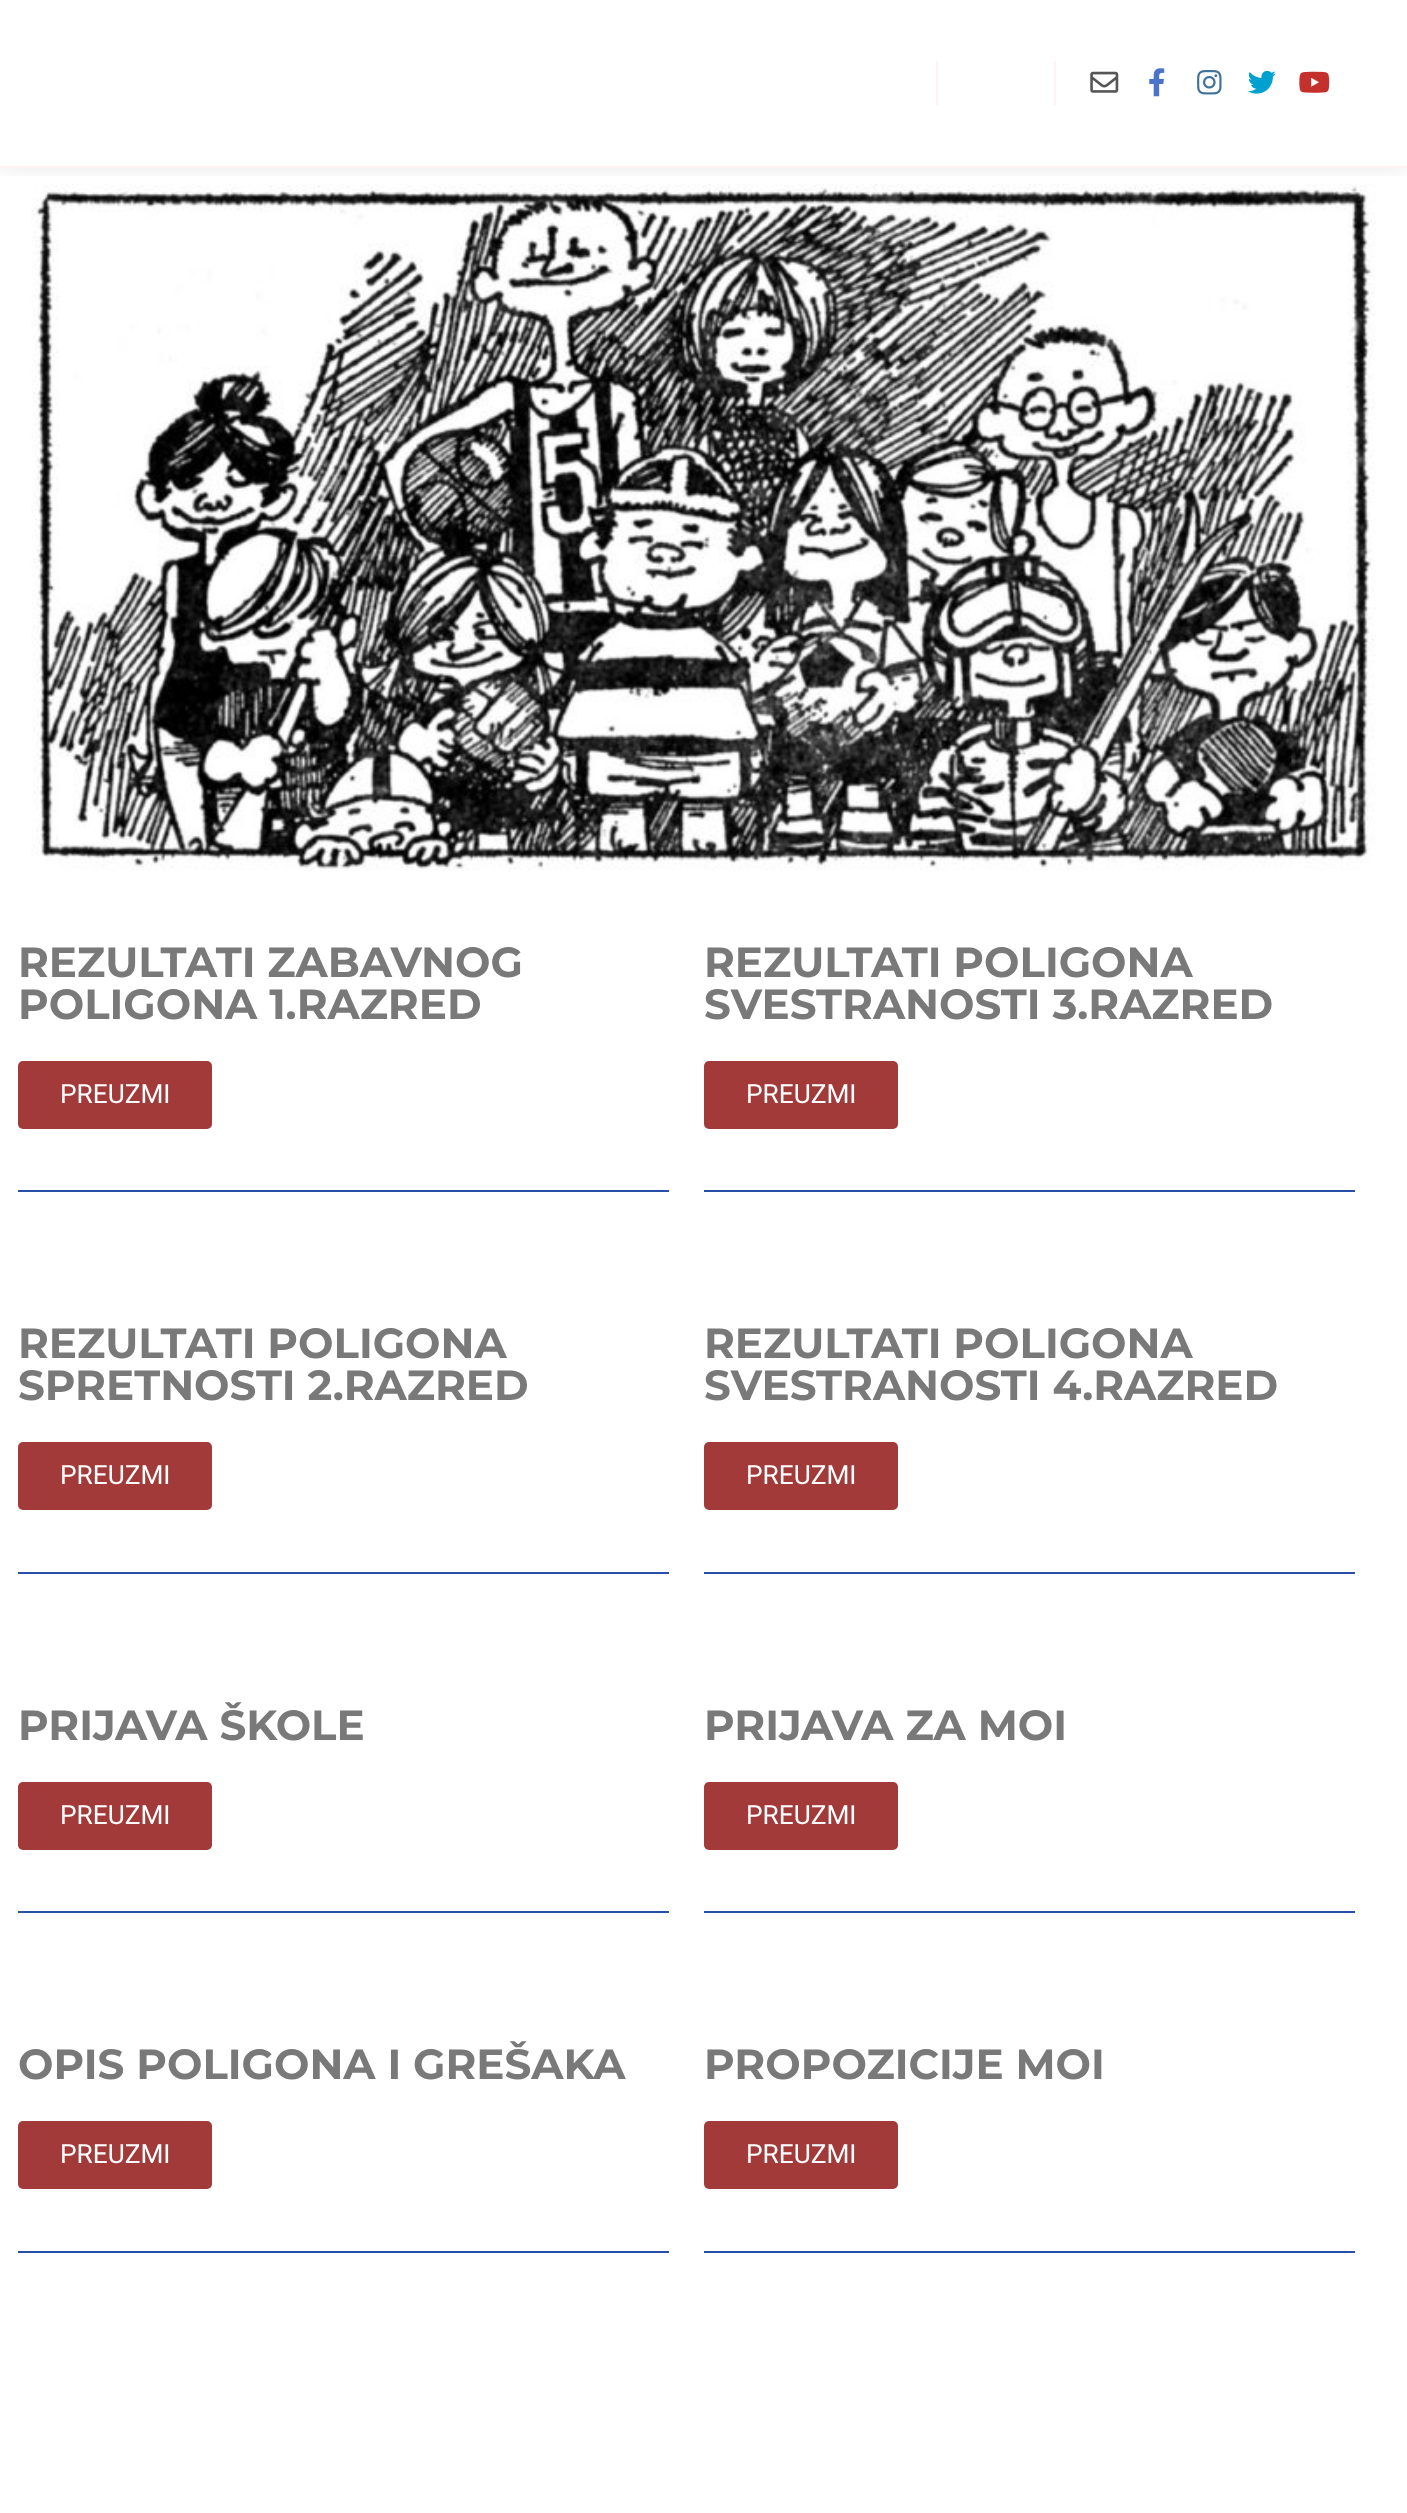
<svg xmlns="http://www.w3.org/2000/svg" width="1407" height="2513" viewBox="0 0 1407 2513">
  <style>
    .t1 { font: bold 42px Montserrat; fill: #797979; }
    .t2 { font: 26.25px Roboto; fill: #fff; }
  </style>
  <defs>
    <clipPath id="clip1"><rect x="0" y="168" width="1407" height="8"/></clipPath>
  </defs>
  <rect width="100%" height="100%" fill="#fff"/>
  <image x="31" y="184" width="1345" height="687" href="images/6.png"/>
  <g clip-path="url(#clip1)">
    <rect x="0" y="0" width="1407" height="168" fill="#00000017" filter="blur(10.5px)"/>
  </g>
  <rect x="0" y="166" width="1407" height="2" fill="#fff2f2"/>
  <rect x="936" y="61" width="2" height="44" fill="#fff2f2"/>
  <rect x="1054" y="61" width="2" height="44" fill="#fff2f2"/>
  <image x="1090" y="71" width="29" height="22" href="images/1.png"/>
  <image x="1149" y="68" width="16" height="29" href="images/2.png"/>
  <image x="1197" y="70" width="25" height="25" href="images/3.png"/>
  <image x="1248" y="70" width="28" height="24" href="images/4.png"/>
  <image x="1299" y="71" width="31" height="22" href="images/5.png"/>
  <text x="18" y="977" class="t1">REZULTATI ZABAVNOG</text>
  <text x="18" y="1019" class="t1">POLIGONA 1.RAZRED</text>
  <rect x="18" y="1061" width="194" height="68" rx="5" fill="#a33a3a"/>
  <text x="60" y="1103" class="t2">PREUZMI</text>
  <rect x="18" y="1190" width="651" height="2" fill="#284fa8"/>
  <text x="704" y="977" class="t1">REZULTATI POLIGONA</text>
  <text x="704" y="1019" class="t1">SVESTRANOSTI 3.RAZRED</text>
  <rect x="704" y="1061" width="194" height="68" rx="5" fill="#a33a3a"/>
  <text x="746" y="1103" class="t2">PREUZMI</text>
  <rect x="704" y="1190" width="651" height="2" fill="#284fa8"/>
  <text x="18" y="1358" class="t1">REZULTATI POLIGONA</text>
  <text x="18" y="1400" class="t1">SPRETNOSTI 2.RAZRED</text>
  <rect x="18" y="1442" width="194" height="68" rx="5" fill="#a33a3a"/>
  <text x="60" y="1484" class="t2">PREUZMI</text>
  <rect x="18" y="1572" width="651" height="2" fill="#284fa8"/>
  <text x="704" y="1358" class="t1">REZULTATI POLIGONA</text>
  <text x="704" y="1400" class="t1">SVESTRANOSTI 4.RAZRED</text>
  <rect x="704" y="1442" width="194" height="68" rx="5" fill="#a33a3a"/>
  <text x="746" y="1484" class="t2">PREUZMI</text>
  <rect x="704" y="1572" width="651" height="2" fill="#284fa8"/>
  <text x="18" y="1740" class="t1">PRIJAVA ŠKOLE</text>
  <rect x="18" y="1782" width="194" height="68" rx="5" fill="#a33a3a"/>
  <text x="60" y="1824" class="t2">PREUZMI</text>
  <rect x="18" y="1911" width="651" height="2" fill="#284fa8"/>
  <text x="704" y="1740" class="t1">PRIJAVA ZA MOI</text>
  <rect x="704" y="1782" width="194" height="68" rx="5" fill="#a33a3a"/>
  <text x="746" y="1824" class="t2">PREUZMI</text>
  <rect x="704" y="1911" width="651" height="2" fill="#284fa8"/>
  <text x="18" y="2079" class="t1">OPIS POLIGONA I GREŠAKA</text>
  <rect x="18" y="2121" width="194" height="68" rx="5" fill="#a33a3a"/>
  <text x="60" y="2163" class="t2">PREUZMI</text>
  <rect x="18" y="2251" width="651" height="2" fill="#284fa8"/>
  <text x="704" y="2079" class="t1">PROPOZICIJE MOI</text>
  <rect x="704" y="2121" width="194" height="68" rx="5" fill="#a33a3a"/>
  <text x="746" y="2163" class="t2">PREUZMI</text>
  <rect x="704" y="2251" width="651" height="2" fill="#284fa8"/>
</svg>
